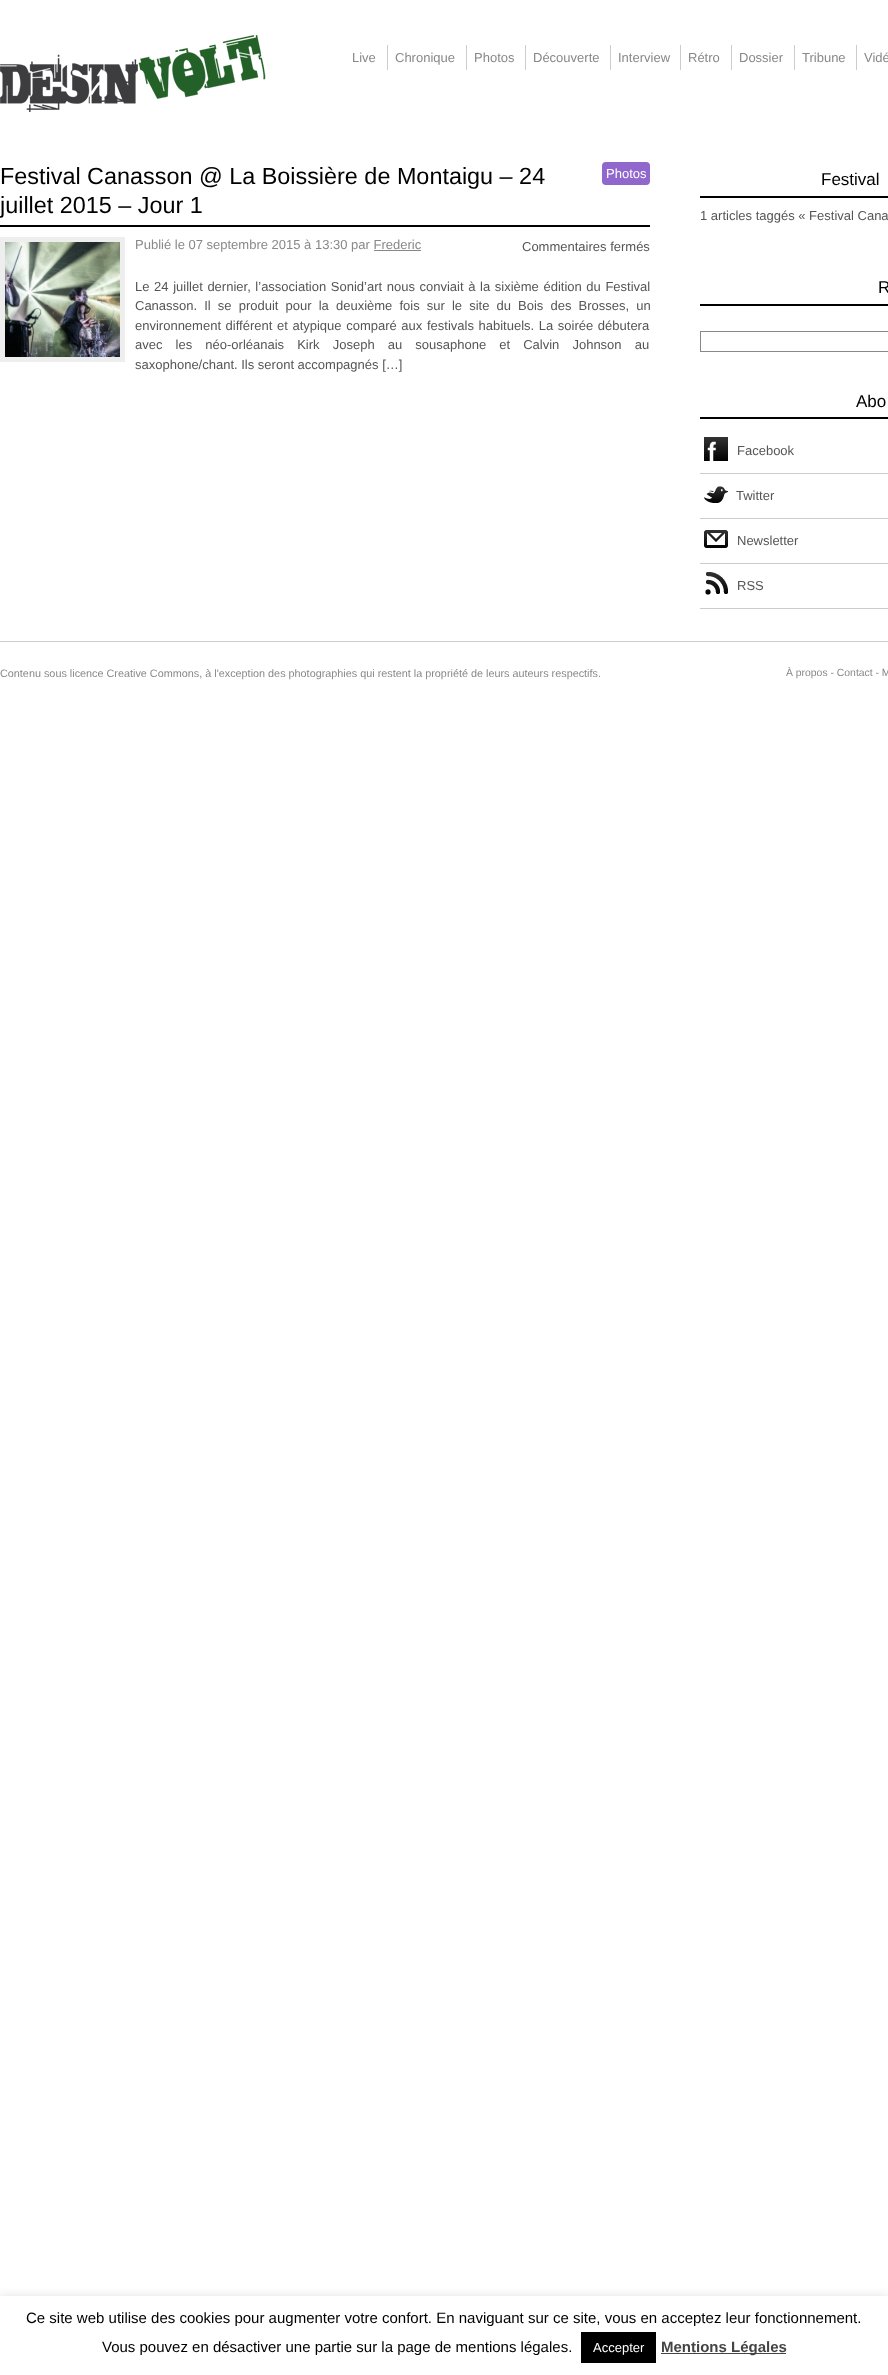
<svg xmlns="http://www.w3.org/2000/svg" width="888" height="2375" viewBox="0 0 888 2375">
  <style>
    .t1 { font: 13px Liberation Sans; fill: #888; }
    .t2 { font: 23.4px Liberation Sans; fill: #000; }
    .t3 { font: 13px Liberation Sans; fill: #fff; }
    .t4 { font: 13px Liberation Sans; fill: #555; }
    .t5 { font: 17px Liberation Sans; fill: #000; }
    .t6 { font: 10.83px Liberation Sans; fill: #888; }
    .t7 { font: 10.4px Liberation Sans; fill: #888; }
    .t8 { font: 15px Liberation Sans; fill: #000; }
    .t9 { font: bold 15px Liberation Sans; fill: #444; }
  </style>
  <defs>
    <clipPath id="clip1"><rect x="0" y="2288" width="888" height="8"/></clipPath>
  </defs>
  <rect width="100%" height="100%" fill="#fff"/>
  <image x="0" y="35" width="266" height="77" href="images/1.png"/>
  <text x="352" y="62" class="t1">Live</text>
  <text x="395" y="62" class="t1">Chronique</text>
  <rect x="387" y="45" width="1" height="25" fill="#ccc"/>
  <text x="474" y="62" class="t1">Photos</text>
  <rect x="466" y="45" width="1" height="25" fill="#ccc"/>
  <text x="533" y="62" class="t1">Découverte</text>
  <rect x="525" y="45" width="1" height="25" fill="#ccc"/>
  <text x="618" y="62" class="t1">Interview</text>
  <rect x="610" y="45" width="1" height="25" fill="#ccc"/>
  <text x="688" y="62" class="t1">Rétro</text>
  <rect x="680" y="45" width="1" height="25" fill="#ccc"/>
  <text x="739" y="62" class="t1">Dossier</text>
  <rect x="731" y="45" width="1" height="25" fill="#ccc"/>
  <text x="802" y="62" class="t1">Tribune</text>
  <rect x="794" y="45" width="1" height="25" fill="#ccc"/>
  <text x="864" y="62" class="t1">Vidé</text>
  <rect x="856" y="45" width="1" height="25" fill="#ccc"/>
  <rect x="0" y="225" width="650" height="2" fill="#000"/>
  <text x="0" y="184" class="t2">Festival Canasson @ La Boissière de Montaigu – 24</text>
  <text x="0" y="213" class="t2">juillet 2015 – Jour 1</text>
  <rect x="602" y="162" width="48" height="23" rx="4" fill="#9067cc"/>
  <text x="606" y="178" class="t3">Photos</text>
  <rect x="2.5" y="239.5" width="120" height="120" fill="none" stroke="#eee" stroke-width="5"/>
  <image x="5" y="242" width="115" height="115" href="images/2.png"/>
  <text x="135" y="249" class="t1">Publié le 07 septembre 2015 à 13:30 par Frederic</text>
  <rect x="374" y="250" width="47" height="1" fill="#888"/>
  <text x="522" y="251" class="t4">Commentaires fermés</text>
  <text x="135" y="291" word-spacing="1" class="t4">Le 24 juillet dernier, l’association Sonid’art nous conviait à la sixième édition du Festival</text>
  <text x="135" y="310" word-spacing="3.5" class="t4">Canasson. Il se produit pour la deuxième fois sur le site du Bois des Brosses, un</text>
  <text x="135" y="330" word-spacing="1" class="t4">environnement différent et atypique comparé aux festivals habituels. La soirée débutera</text>
  <text x="135" y="349" word-spacing="9.5" class="t4">avec les néo-orléanais Kirk Joseph au sousaphone et Calvin Johnson au</text>
  <text x="135" y="369" class="t4">saxophone/chant. Ils seront accompagnés […]</text>
  <rect x="700" y="196" width="188" height="2" fill="#000"/>
  <text x="821" y="185" class="t5">Festival</text>
  <text x="700" y="220" class="t4">1 articles taggés « Festival Cana</text>
  <rect x="700" y="304" width="188" height="2" fill="#000"/>
  <text x="878" y="293" class="t5">R</text>
  <rect x="700.5" y="331.5" width="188" height="20" fill="none" stroke="#888"/>
  <rect x="700" y="417" width="188" height="2" fill="#000"/>
  <text x="856" y="407" class="t5">Abo</text>
  <rect x="700" y="473" width="188" height="1" fill="#ccc"/>
  <image x="704" y="437" width="24" height="24" href="images/3.png"/>
  <text x="737" y="455" class="t4">Facebook</text>
  <rect x="700" y="518" width="188" height="1" fill="#ccc"/>
  <image x="704" y="486" width="24" height="17" href="images/4.png"/>
  <text x="736" y="500" class="t4">Twitter</text>
  <rect x="700" y="563" width="188" height="1" fill="#ccc"/>
  <image x="704" y="530" width="24" height="18" href="images/5.png"/>
  <text x="737" y="545" class="t4">Newsletter</text>
  <rect x="700" y="608" width="188" height="1" fill="#ccc"/>
  <image x="705" y="572" width="23" height="23" href="images/6.png"/>
  <text x="737" y="590" class="t4">RSS</text>
  <rect x="0" y="641" width="888" height="1" fill="#ccc"/>
  <text x="0" y="677" class="t6">Contenu sous licence Creative Commons, à l'exception des photographies qui restent la propriété de leurs auteurs respectifs.</text>
  <text x="786" y="676" class="t7">À propos - Contact - M</text>
  <g clip-path="url(#clip1)">
    <rect x="0" y="2295" width="888" height="79" fill="#acabab4d" filter="blur(5px)"/>
  </g>
  <text x="26" y="2323" class="t8">Ce site web utilise des cookies pour augmenter votre confort. En naviguant sur ce site, vous en acceptez leur fonctionnement.</text>
  <text x="102" y="2352" class="t8">Vous pouvez en désactiver une partie sur la page de mentions légales.</text>
  <rect x="581" y="2332" width="75" height="31" fill="#000"/>
  <text x="593" y="2352" class="t3">Accepter</text>
  <rect x="661" y="2353" width="125" height="1" fill="#444"/>
  <text x="661" y="2352" class="t9">Mentions Légales</text>
</svg>
